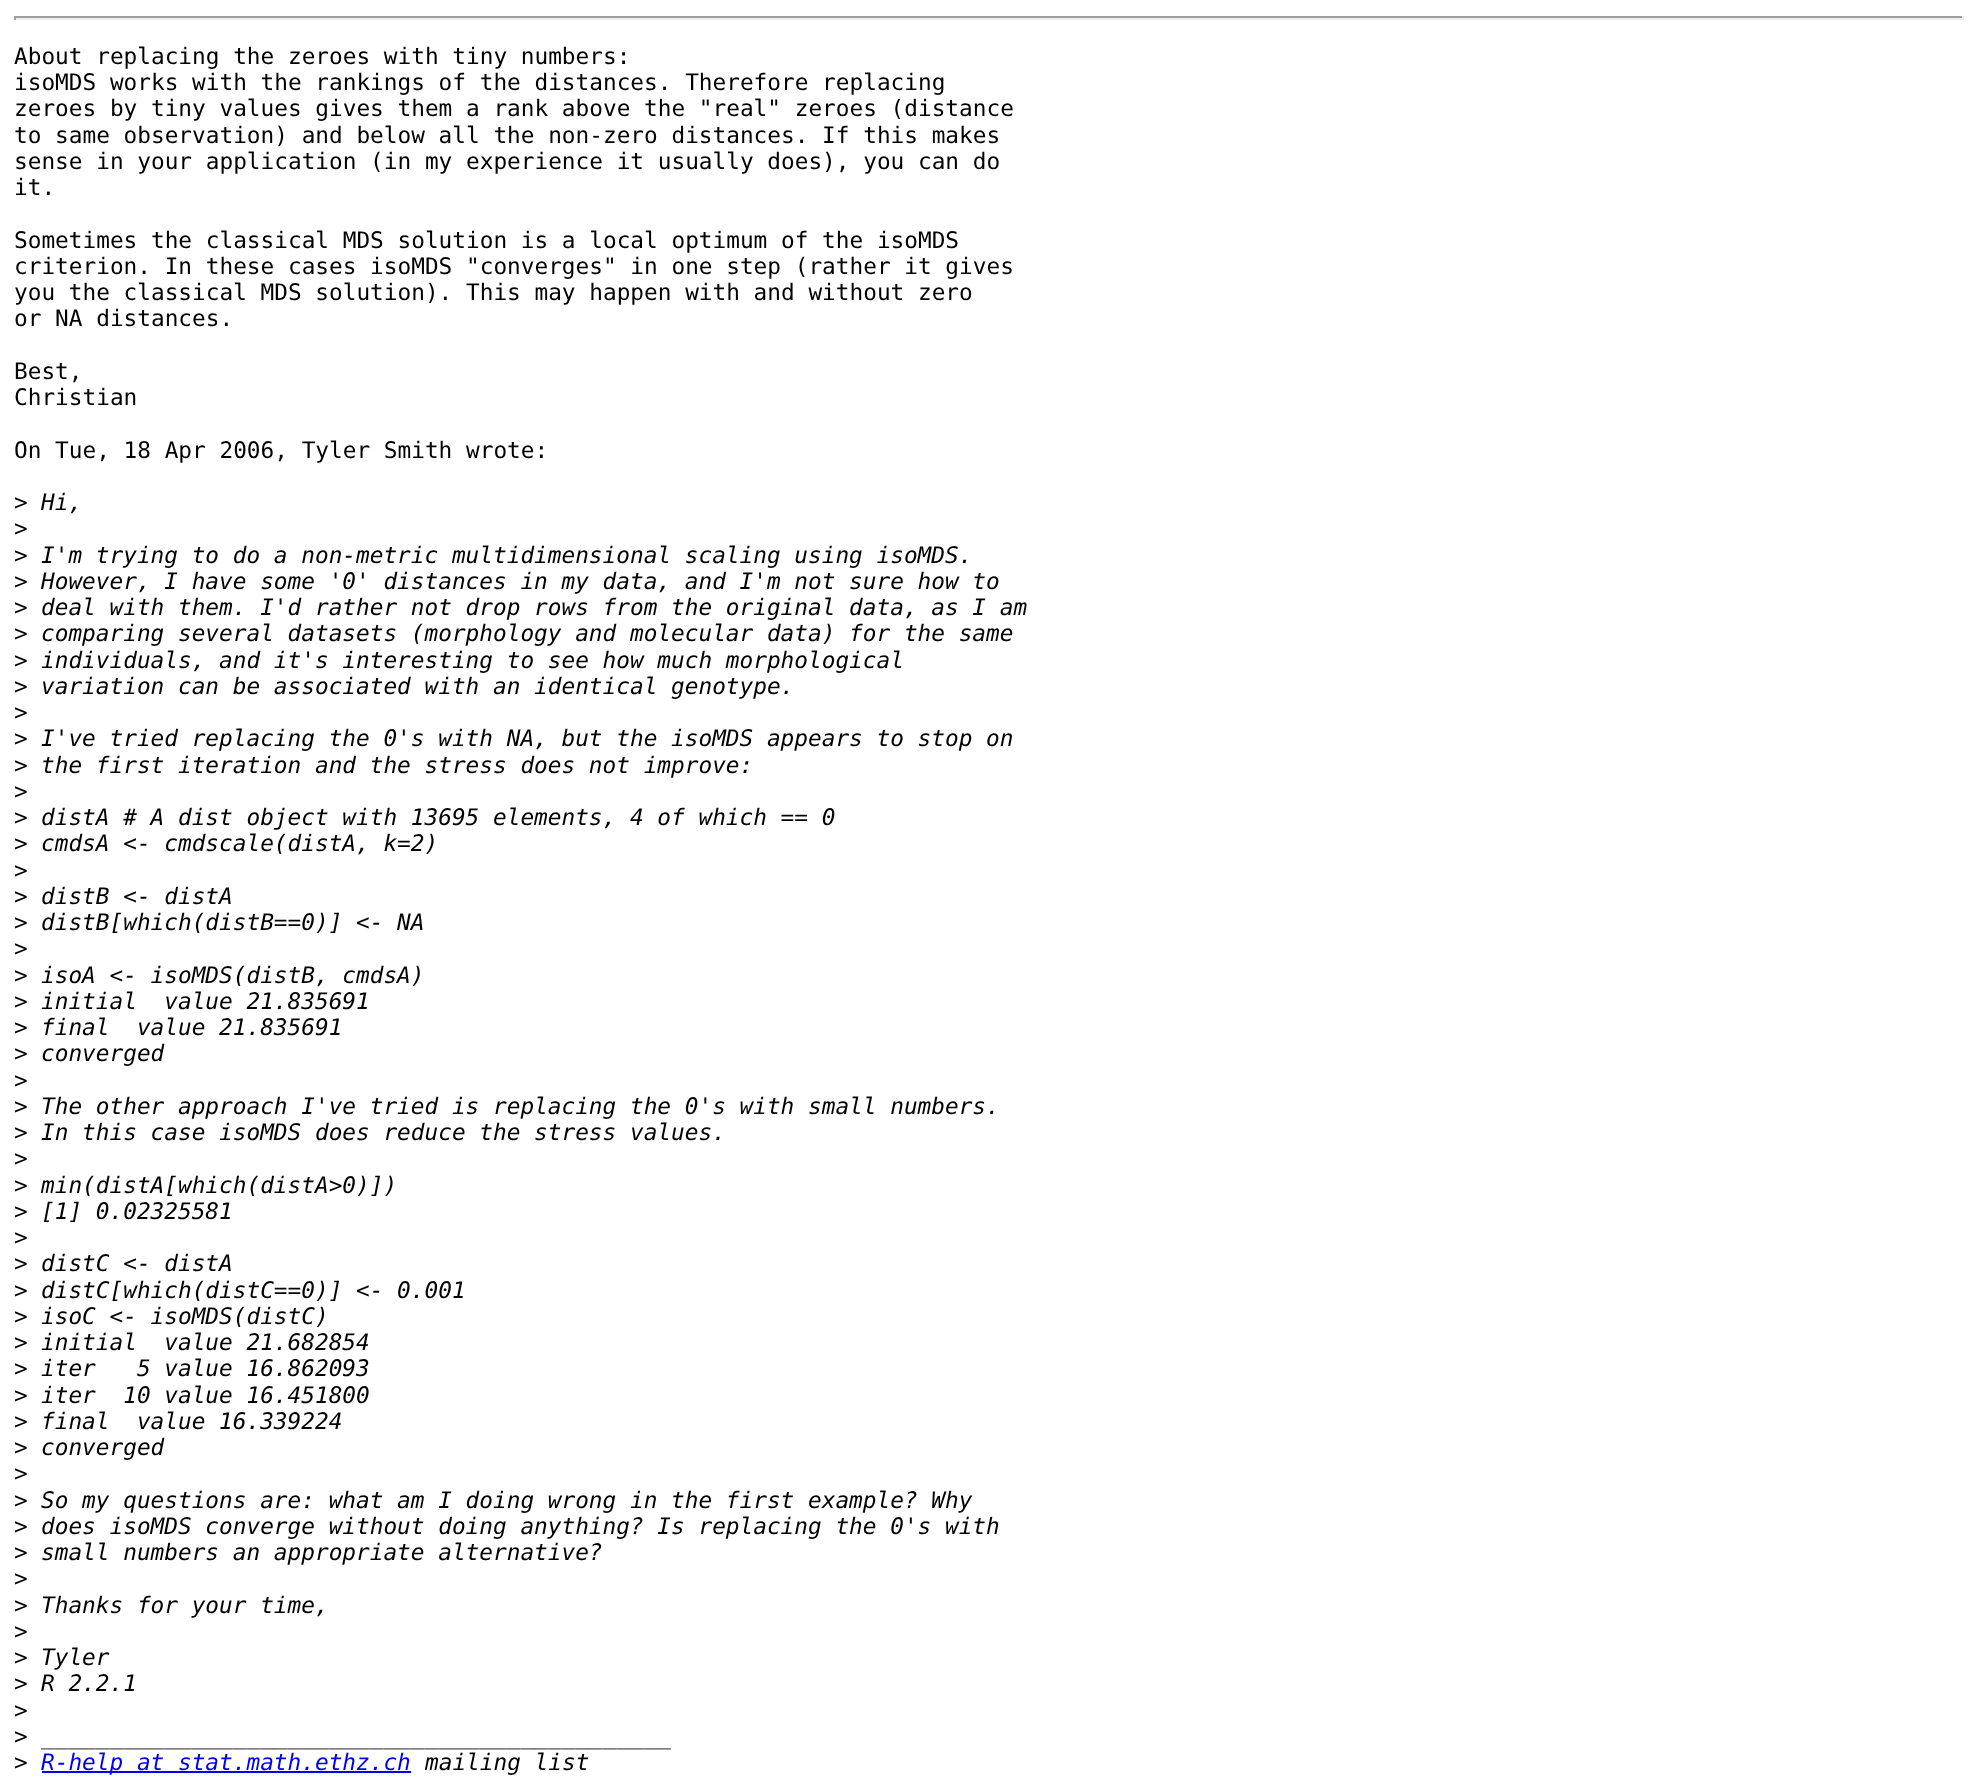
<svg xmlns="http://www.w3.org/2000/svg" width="1977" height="1787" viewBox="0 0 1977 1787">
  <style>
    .t1 { font: 22.75px DejaVu Sans Mono; fill: #000; }
    .t2 { font: italic 22.75px DejaVu Sans Mono; fill: #000; }
    .t3 { font: italic 22.75px DejaVu Sans Mono; fill: #00e; }
  </style>
  <rect width="100%" height="100%" fill="#fff"/>
  <rect x="14" y="16" width="1950" height="2" fill="#9f9f9f"/>
  <rect x="1962" y="16" width="2" height="4" fill="#eee"/>
  <rect x="14" y="18" width="1950" height="2" fill="#eee"/>
  <rect x="14" y="16" width="2" height="4" fill="#9f9f9f"/>
  <text x="14" y="64" class="t1">About replacing the zeroes with tiny numbers:</text>
  <text x="14" y="90" class="t1">isoMDS works with the rankings of the distances. Therefore replacing</text>
  <text x="14" y="116" class="t1">zeroes by tiny values gives them a rank above the "real" zeroes (distance</text>
  <text x="14" y="143" class="t1">to same observation) and below all the non-zero distances. If this makes</text>
  <text x="14" y="169" class="t1">sense in your application (in my experience it usually does), you can do</text>
  <text x="14" y="195" class="t1">it.</text>
  <text x="14" y="248" class="t1">Sometimes the classical MDS solution is a local optimum of the isoMDS</text>
  <text x="14" y="274" class="t1">criterion. In these cases isoMDS "converges" in one step (rather it gives</text>
  <text x="14" y="300" class="t1">you the classical MDS solution). This may happen with and without zero</text>
  <text x="14" y="326" class="t1">or NA distances.</text>
  <text x="14" y="379" class="t1">Best,</text>
  <text x="14" y="405" class="t1">Christian</text>
  <text x="14" y="458" class="t1">On Tue, 18 Apr 2006, Tyler Smith wrote:</text>
  <text x="14" y="510" class="t1">&gt;</text>
  <text x="41" y="510" class="t2">Hi,</text>
  <text x="14" y="536" class="t1">&gt;</text>
  <text x="14" y="563" class="t1">&gt;</text>
  <text x="41" y="563" class="t2">I'm trying to do a non-metric multidimensional scaling using isoMDS.</text>
  <text x="14" y="589" class="t1">&gt;</text>
  <text x="41" y="589" class="t2">However, I have some '0' distances in my data, and I'm not sure how to</text>
  <text x="14" y="615" class="t1">&gt;</text>
  <text x="41" y="615" class="t2">deal with them. I'd rather not drop rows from the original data, as I am</text>
  <text x="14" y="641" class="t1">&gt;</text>
  <text x="41" y="641" class="t2">comparing several datasets (morphology and molecular data) for the same</text>
  <text x="14" y="668" class="t1">&gt;</text>
  <text x="41" y="668" class="t2">individuals, and it's interesting to see how much morphological</text>
  <text x="14" y="694" class="t1">&gt;</text>
  <text x="41" y="694" class="t2">variation can be associated with an identical genotype.</text>
  <text x="14" y="720" class="t1">&gt;</text>
  <text x="14" y="746" class="t1">&gt;</text>
  <text x="41" y="746" class="t2">I've tried replacing the 0's with NA, but the isoMDS appears to stop on</text>
  <text x="14" y="773" class="t1">&gt;</text>
  <text x="41" y="773" class="t2">the first iteration and the stress does not improve:</text>
  <text x="14" y="799" class="t1">&gt;</text>
  <text x="14" y="825" class="t1">&gt;</text>
  <text x="41" y="825" class="t2">distA # A dist object with 13695 elements, 4 of which == 0</text>
  <text x="14" y="851" class="t1">&gt;</text>
  <text x="41" y="851" class="t2">cmdsA &lt;- cmdscale(distA, k=2)</text>
  <text x="14" y="878" class="t1">&gt;</text>
  <text x="14" y="904" class="t1">&gt;</text>
  <text x="41" y="904" class="t2">distB &lt;- distA</text>
  <text x="14" y="930" class="t1">&gt;</text>
  <text x="41" y="930" class="t2">distB[which(distB==0)] &lt;- NA</text>
  <text x="14" y="956" class="t1">&gt;</text>
  <text x="14" y="983" class="t1">&gt;</text>
  <text x="41" y="983" class="t2">isoA &lt;- isoMDS(distB, cmdsA)</text>
  <text x="14" y="1009" class="t1">&gt;</text>
  <text x="41" y="1009" class="t2" xml:space="preserve">initial  value 21.835691</text>
  <text x="14" y="1035" class="t1">&gt;</text>
  <text x="41" y="1035" class="t2" xml:space="preserve">final  value 21.835691</text>
  <text x="14" y="1061" class="t1">&gt;</text>
  <text x="41" y="1061" class="t2">converged</text>
  <text x="14" y="1088" class="t1">&gt;</text>
  <text x="14" y="1114" class="t1">&gt;</text>
  <text x="41" y="1114" class="t2">The other approach I've tried is replacing the 0's with small numbers.</text>
  <text x="14" y="1140" class="t1">&gt;</text>
  <text x="41" y="1140" class="t2">In this case isoMDS does reduce the stress values.</text>
  <text x="14" y="1166" class="t1">&gt;</text>
  <text x="14" y="1193" class="t1">&gt;</text>
  <text x="41" y="1193" class="t2">min(distA[which(distA&gt;0)])</text>
  <text x="14" y="1219" class="t1">&gt;</text>
  <text x="41" y="1219" class="t2">[1] 0.02325581</text>
  <text x="14" y="1245" class="t1">&gt;</text>
  <text x="14" y="1271" class="t1">&gt;</text>
  <text x="41" y="1271" class="t2">distC &lt;- distA</text>
  <text x="14" y="1298" class="t1">&gt;</text>
  <text x="41" y="1298" class="t2">distC[which(distC==0)] &lt;- 0.001</text>
  <text x="14" y="1324" class="t1">&gt;</text>
  <text x="41" y="1324" class="t2">isoC &lt;- isoMDS(distC)</text>
  <text x="14" y="1350" class="t1">&gt;</text>
  <text x="41" y="1350" class="t2" xml:space="preserve">initial  value 21.682854</text>
  <text x="14" y="1376" class="t1">&gt;</text>
  <text x="41" y="1376" class="t2" xml:space="preserve">iter   5 value 16.862093</text>
  <text x="14" y="1403" class="t1">&gt;</text>
  <text x="41" y="1403" class="t2" xml:space="preserve">iter  10 value 16.451800</text>
  <text x="14" y="1429" class="t1">&gt;</text>
  <text x="41" y="1429" class="t2" xml:space="preserve">final  value 16.339224</text>
  <text x="14" y="1455" class="t1">&gt;</text>
  <text x="41" y="1455" class="t2">converged</text>
  <text x="14" y="1481" class="t1">&gt;</text>
  <text x="14" y="1508" class="t1">&gt;</text>
  <text x="41" y="1508" class="t2">So my questions are: what am I doing wrong in the first example? Why</text>
  <text x="14" y="1534" class="t1">&gt;</text>
  <text x="41" y="1534" class="t2">does isoMDS converge without doing anything? Is replacing the 0's with</text>
  <text x="14" y="1560" class="t1">&gt;</text>
  <text x="41" y="1560" class="t2">small numbers an appropriate alternative?</text>
  <text x="14" y="1586" class="t1">&gt;</text>
  <text x="14" y="1613" class="t1">&gt;</text>
  <text x="41" y="1613" class="t2">Thanks for your time,</text>
  <text x="14" y="1639" class="t1">&gt;</text>
  <text x="14" y="1665" class="t1">&gt;</text>
  <text x="41" y="1665" class="t2">Tyler</text>
  <text x="14" y="1691" class="t1">&gt;</text>
  <text x="41" y="1691" class="t2">R 2.2.1</text>
  <text x="14" y="1718" class="t1">&gt;</text>
  <text x="14" y="1744" class="t1">&gt;</text>
  <text x="41" y="1744" class="t2">______________________________________________</text>
  <text x="14" y="1770" class="t1">&gt;</text>
  <rect x="42" y="1771" width="369" height="2" fill="#00e"/>
  <text x="41" y="1770" class="t3">R-help at stat.math.ethz.ch</text>
  <text x="425" y="1770" class="t2">mailing list</text>
</svg>
